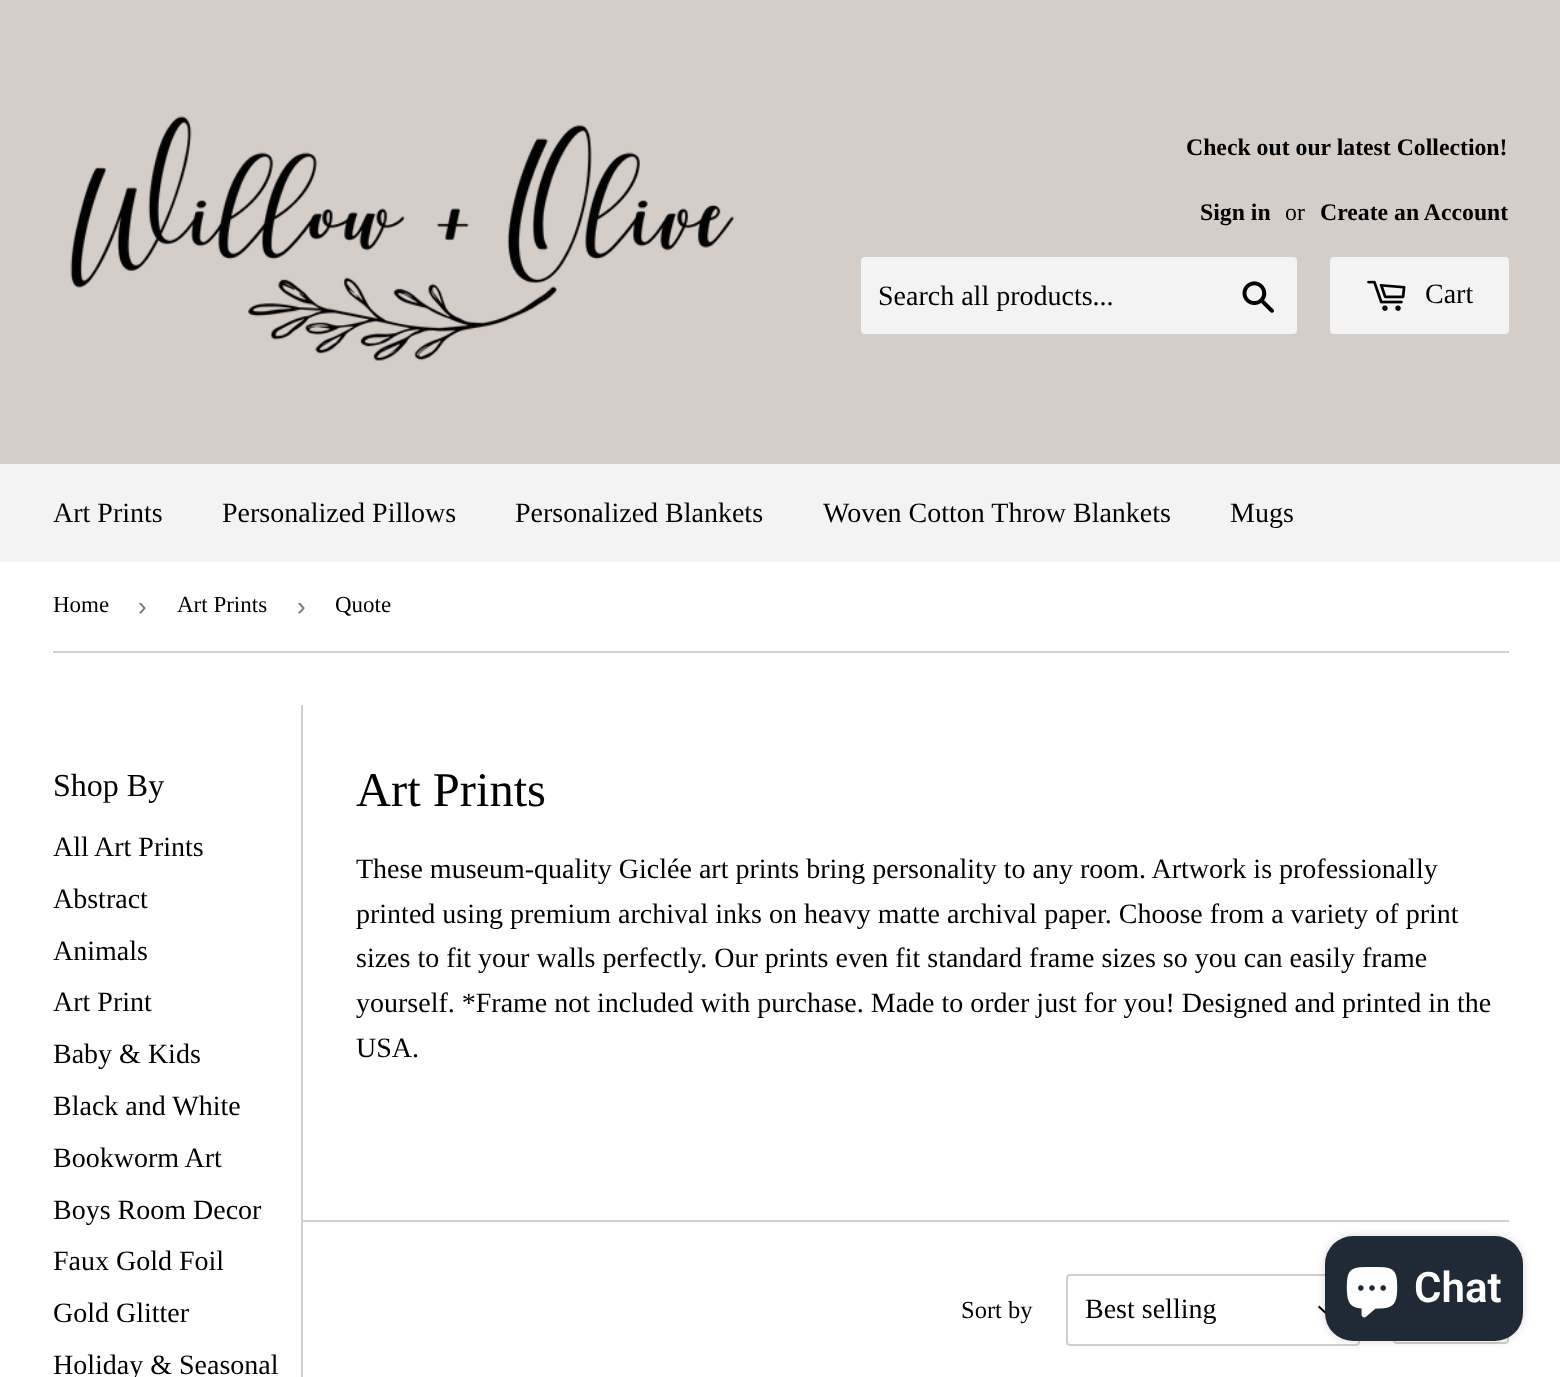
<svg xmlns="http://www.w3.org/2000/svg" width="1560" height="1377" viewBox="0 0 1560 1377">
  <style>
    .t1 { font: bold 23.75px Liberation Serif; fill: #000; }
    .t2 { font: 23.75px Liberation Serif; fill: #000; }
    .t3 { font: 28px Liberation Serif; fill: #000; }
    .t4 { font: 23px Liberation Serif; fill: #000; }
    .t5 { font: 26px Liberation Sans; fill: #767676; }
    .t6 { font: 32px Liberation Serif; fill: #000; }
    .t7 { font: 48.5px Liberation Serif; fill: #000; }
    .t8 { font: 24.5px Liberation Serif; fill: #000; }
    .t9 { font: 600 42px Roboto; fill: #fff; }
  </style>
  <rect width="100%" height="100%" fill="#fff"/>
  <rect x="0" y="0" width="1560" height="464" fill="#d4cdc8"/>
  <image x="70" y="116" width="665" height="245" href="images/1.png"/>
  <text x="1186" y="155" class="t1">Check out our latest Collection!</text>
  <text x="1200" y="220" class="t1">Sign in</text>
  <text x="1285" y="220" class="t2">or</text>
  <text x="1320" y="220" class="t1">Create an Account</text>
  <rect x="861" y="257" width="436" height="77" rx="4" fill="#f4f3f3"/>
  <text x="878" y="305" class="t3">Search all products...</text>
  <image x="1242" y="281" width="32" height="32" href="images/2.png"/>
  <rect x="1330" y="257" width="179" height="77" rx="4" fill="#f4f3f3"/>
  <image x="1367" y="280" width="39" height="31" href="images/3.png"/>
  <text x="1425" y="303" class="t3">Cart</text>
  <rect x="0" y="464" width="1560" height="98" fill="#f4f3f3"/>
  <text x="53" y="522" class="t3">Art Prints</text>
  <text x="222" y="522" class="t3">Personalized Pillows</text>
  <text x="515" y="522" class="t3">Personalized Blankets</text>
  <text x="823" y="522" class="t3">Woven Cotton Throw Blankets</text>
  <text x="1230" y="522" class="t3">Mugs</text>
  <rect x="53" y="651" width="1456" height="2" fill="#d4cdc8"/>
  <text x="53" y="612" class="t4">Home</text>
  <text x="138" y="615" class="t5">›</text>
  <text x="177" y="612" class="t4">Art Prints</text>
  <text x="297" y="615" class="t5">›</text>
  <text x="335" y="612" class="t4">Quote</text>
  <text x="53" y="796" class="t6">Shop By</text>
  <text x="53" y="856" class="t3">All</text>
  <text x="94" y="856" class="t3">Art Prints</text>
  <text x="53" y="908" class="t3">Abstract</text>
  <text x="53" y="960" class="t3">Animals</text>
  <text x="53" y="1011" class="t3">Art Print</text>
  <text x="53" y="1063" class="t3">Baby &amp; Kids</text>
  <text x="53" y="1115" class="t3">Black and White</text>
  <text x="53" y="1167" class="t3">Bookworm Art</text>
  <text x="53" y="1219" class="t3">Boys Room Decor</text>
  <text x="53" y="1270" class="t3">Faux Gold Foil</text>
  <text x="53" y="1322" class="t3">Gold Glitter</text>
  <text x="53" y="1374" class="t3">Holiday &amp; Seasonal</text>
  <rect x="301" y="705" width="2" height="672" fill="#d4cdc8"/>
  <text x="356" y="806" class="t7">Art Prints</text>
  <text x="356" y="878" class="t3">These museum-quality Giclée art prints bring personality to any room. Artwork is professionally</text>
  <text x="356" y="923" class="t3">printed using premium archival inks on heavy matte archival paper. Choose from a variety of print</text>
  <text x="356" y="967" class="t3">sizes to fit your walls perfectly. Our prints even fit standard frame sizes so you can easily frame</text>
  <text x="356" y="1012" class="t3">yourself. *Frame not included with purchase. Made to order just for you! Designed and printed in the</text>
  <text x="356" y="1057" class="t3">USA.</text>
  <rect x="303" y="1220" width="1206" height="2" fill="#d4cdc8"/>
  <text x="961" y="1318" class="t8">Sort by</text>
  <image x="1318" y="1305" width="8" height="10" href="images/4.png"/>
  <rect x="1067" y="1275" width="292" height="70" rx="3" fill="none" stroke="#d4cdc8" stroke-width="2"/>
  <text x="1085" y="1318" class="t3">Best selling</text>
  <rect x="1394" y="1277" width="114" height="66" rx="3" fill="none" stroke="#d4cdc8" stroke-width="2"/>
  <rect x="1325" y="1236" width="198" height="105" rx="28" fill="#00000026" filter="blur(4.5px)"/>
  <rect x="1325" y="1236" width="198" height="105" rx="28" fill="#202a36"/>
  <image x="1346" y="1267" width="52" height="51" href="images/5.png"/>
  <text x="1414" y="1302" class="t9">Chat</text>
</svg>
